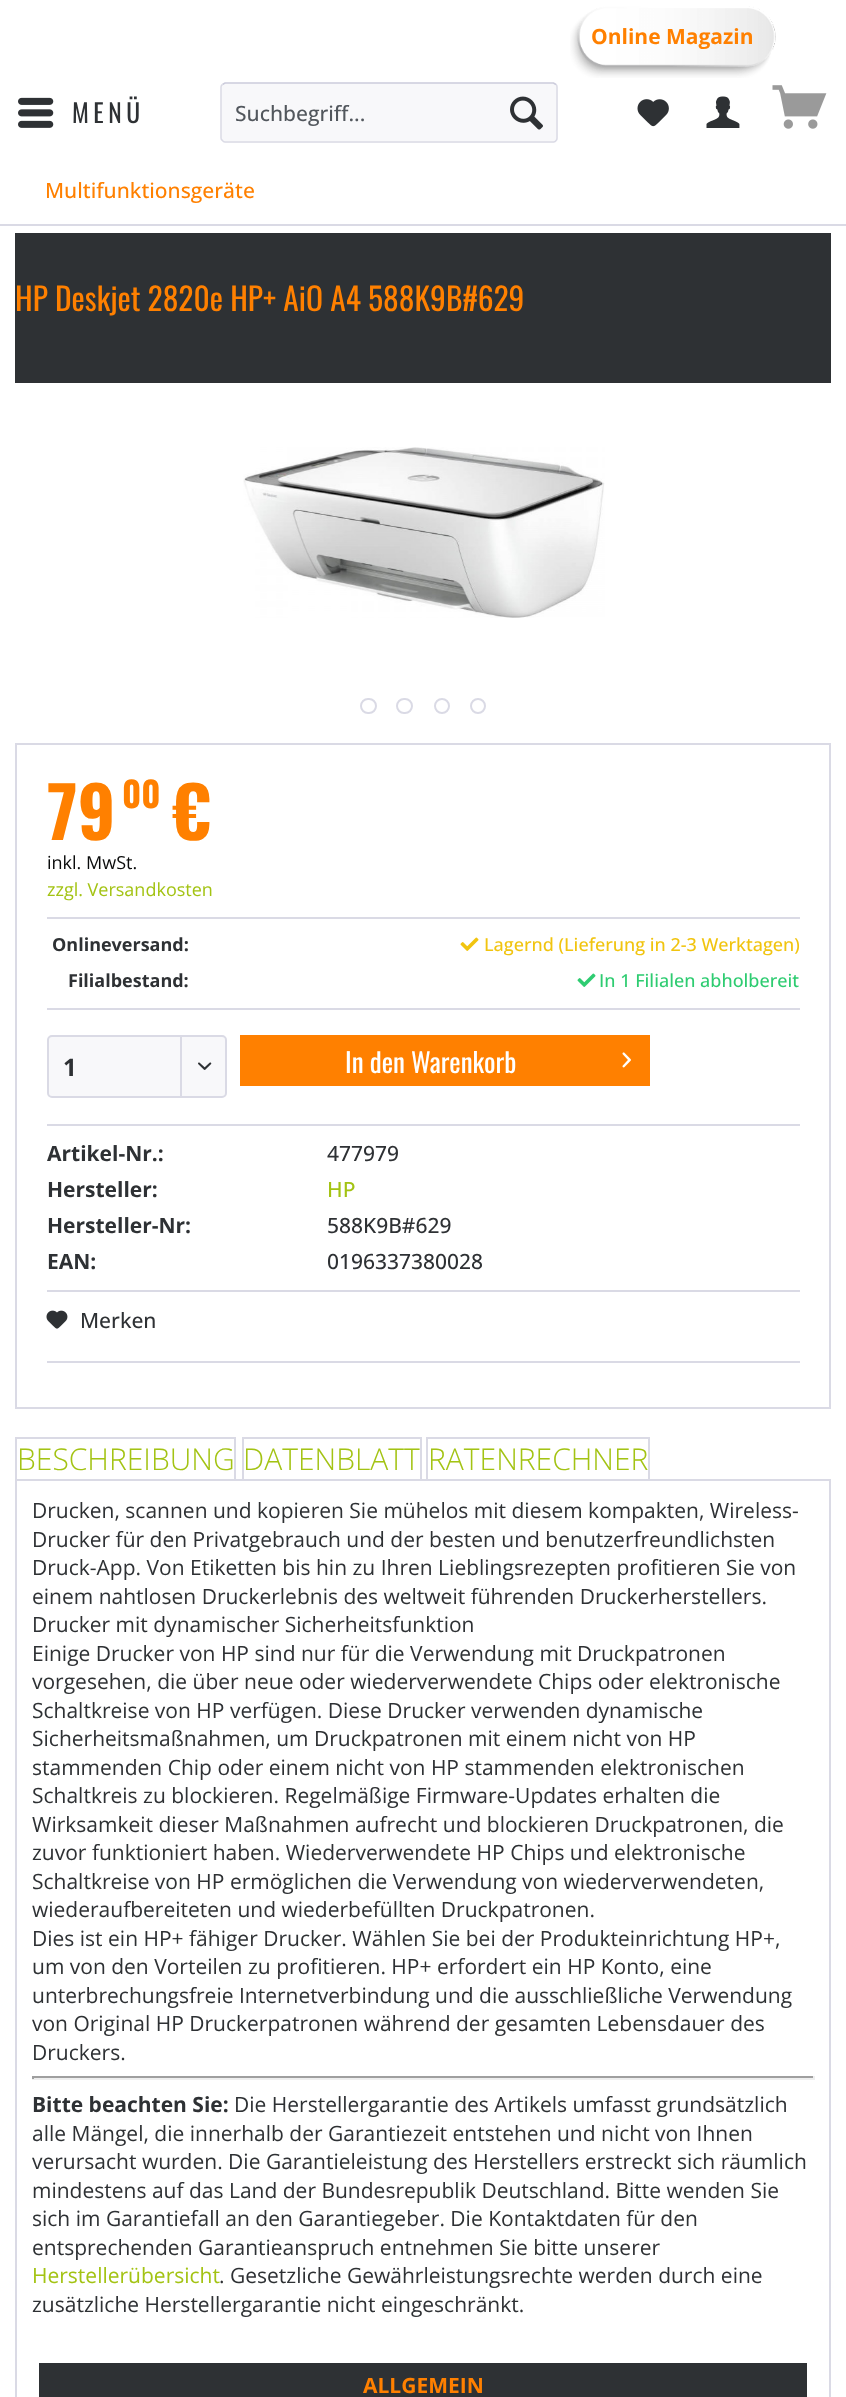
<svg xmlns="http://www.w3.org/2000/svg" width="846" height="2397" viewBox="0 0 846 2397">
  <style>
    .t1 { font: bold 21px Open Sans; fill: #ff8000; }
    .t2 { font: 25.5px Oswald; letter-spacing: 4.5px; fill: #2e3134; }
    .t3 { font: 500 21px Open Sans; fill: #52575d; }
    .t4 { font: 500 21px Open Sans; fill: #ff8000; }
    .t5 { font: 31.5px Oswald; fill: #ff8000; }
    .t6 { font: bold 70px Oswald; fill: #ff8000; }
    .t7 { font: bold 35px Oswald; fill: #ff8000; }
    .t8 { font: 18px Open Sans; fill: #0a0b0b; }
    .t9 { font: 18px Open Sans; fill: #a3c313; }
    .t10 { font: bold 18px Open Sans; fill: #2e3134; }
    .t11 { font: 500 18px Open Sans; fill: #f1c40f; }
    .t12 { font: 500 18px Open Sans; fill: #2ecc71; }
    .t13 { font: bold 24px Open Sans; fill: #2e3134; }
    .t14 { font: 27px Oswald; fill: #fff; }
    .t15 { font: bold 21px Open Sans; fill: #2e3134; }
    .t16 { font: 500 21px Open Sans; fill: #2e3134; }
    .t17 { font: 500 21px Open Sans; fill: #a3c313; }
    .t18 { font: 300 30px Open Sans; fill: #a3c313; }
    .t19 { font: 21px Open Sans; fill: #2e3134; }
    .t20 { font: 21px Open Sans; fill: #a3c313; }
  </style>
  <rect width="100%" height="100%" fill="#fff"/>
  <image x="570" y="6" width="206" height="72" href="images/1.png"/>
  <text x="591" y="44" class="t1">Online Magazin</text>
  <image x="18" y="97" width="36" height="31" href="images/2.png"/>
  <text x="72" y="123" class="t2">MENÜ</text>
  <rect x="221" y="83" width="337" height="60" rx="5" fill="#f8f8fa"/>
  <path d="M222.5 84.5L225 83H553.5L556 84.5" fill="none" stroke="#cbcbdb" stroke-width="1.5"/>
  <path d="M556 84.5C557 85 557 86 557 87V138C557 139 557 140 556 140.5C555.5 141.5 554.5 142 553.5 142H225C224 142 223 141.5 222.5 140.5C221.5 140 221 139 221 138V87C221 86 221.5 85 222.5 84.5" fill="none" stroke="#dadae5" stroke-width="1.5"/>
  <text x="235" y="121" class="t3">Suchbegriff...</text>
  <image x="510" y="96" width="33" height="34" href="images/3.png"/>
  <image x="637" y="99" width="32" height="28" href="images/4.png"/>
  <image x="706" y="96" width="34" height="32" href="images/5.png"/>
  <image x="772" y="85" width="55" height="44" href="images/6.png"/>
  <rect x="0" y="224" width="846" height="2" fill="#dadae5"/>
  <text x="45" y="198" class="t4">Multifunktionsgeräte</text>
  <rect x="15" y="233" width="816" height="150" fill="#2e3134"/>
  <text x="15" y="311" class="t5">HP Deskjet 2820e HP+ AiO A4 588K9B#629</text>
  <image x="243" y="447" width="362" height="171" href="images/7.png"/>
  <rect x="361" y="699" width="15" height="14" rx="7" fill="none" stroke="#dadae5" stroke-width="2"/>
  <rect x="397" y="699" width="15" height="14" rx="7" fill="none" stroke="#dadae5" stroke-width="2"/>
  <circle cx="442" cy="706" r="7" fill="none" stroke="#dadae5" stroke-width="2"/>
  <circle cx="478" cy="706" r="7" fill="none" stroke="#dadae5" stroke-width="2"/>
  <rect x="16" y="744" width="814" height="664" fill="none" stroke="#dadae5" stroke-width="2"/>
  <text x="47" y="840" class="t6">79</text>
  <text x="122" y="808" class="t7">00</text>
  <text x="172" y="840" class="t6">€</text>
  <text x="47" y="869" class="t8">inkl. MwSt.</text>
  <text x="47" y="896" class="t9">zzgl. Versandkosten</text>
  <rect x="47" y="917" width="753" height="2" fill="#dadae5"/>
  <text x="52" y="951" class="t10">Onlineversand:</text>
  <image x="460" y="937" width="19" height="14" href="images/8.png"/>
  <text x="484" y="951" class="t11">Lagernd (Lieferung in 2-3 Werktagen)</text>
  <text x="68" y="987" class="t10">Filialbestand:</text>
  <image x="577" y="973" width="19" height="14" href="images/9.png"/>
  <text x="599" y="987" class="t12">In 1 Filialen abholbereit</text>
  <rect x="47" y="1008" width="753" height="2" fill="#dadae5"/>
  <rect x="48" y="1036" width="178" height="61" rx="4" fill="#f8f8fa" stroke="#dadae5" stroke-width="2"/>
  <text x="63" y="1076" class="t13">1</text>
  <rect x="180" y="1037" width="2" height="60" fill="#dadae5"/>
  <image x="198" y="1062" width="14" height="8" href="images/10.png"/>
  <rect x="240" y="1035" width="410" height="51" fill="#ff8000"/>
  <text x="345" y="1073" class="t14">In den Warenkorb</text>
  <image x="622" y="1052" width="9" height="16" href="images/11.png"/>
  <rect x="47" y="1124" width="753" height="2" fill="#dadae5"/>
  <text x="47" y="1161" class="t15">Artikel-Nr.:</text>
  <text x="327" y="1161" class="t16">477979</text>
  <text x="47" y="1197" class="t15">Hersteller:</text>
  <text x="327" y="1197" class="t17">HP</text>
  <text x="47" y="1233" class="t15">Hersteller-Nr:</text>
  <text x="327" y="1233" class="t16">588K9B#629</text>
  <text x="47" y="1269" class="t15">EAN:</text>
  <text x="327" y="1269" class="t16">0196337380028</text>
  <rect x="47" y="1290" width="753" height="2" fill="#dadae5"/>
  <rect x="47" y="1361" width="753" height="2" fill="#dadae5"/>
  <image x="46" y="1310" width="22" height="19" href="images/12.png"/>
  <text x="80" y="1328" class="t16">Merken</text>
  <text x="17" y="1470" class="t18">BESCHREIBUNG</text>
  <rect x="15" y="1437" width="221" height="2" fill="#dadae5"/>
  <rect x="234" y="1437" width="2" height="42" fill="#dadae5"/>
  <rect x="15" y="1437" width="2" height="42" fill="#dadae5"/>
  <text x="243" y="1470" class="t18">DATENBLATT</text>
  <rect x="242" y="1437" width="180" height="2" fill="#dadae5"/>
  <rect x="420" y="1437" width="2" height="42" fill="#dadae5"/>
  <rect x="242" y="1437" width="2" height="42" fill="#dadae5"/>
  <text x="428" y="1470" class="t18">RATENRECHNER</text>
  <rect x="426" y="1437" width="224" height="2" fill="#dadae5"/>
  <rect x="648" y="1437" width="2" height="42" fill="#dadae5"/>
  <rect x="426" y="1437" width="2" height="42" fill="#dadae5"/>
  <rect x="16" y="1480" width="814" height="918" fill="none" stroke="#dadae5" stroke-width="2"/>
  <text x="32" y="1518" class="t19">Drucken, scannen und kopieren Sie mühelos mit diesem kompakten, Wireless-</text>
  <text x="32" y="1547" class="t19">Drucker für den Privatgebrauch und der besten und benutzerfreundlichsten</text>
  <text x="32" y="1575" class="t19">Druck-App. Von Etiketten bis hin zu Ihren Lieblingsrezepten profitieren Sie von</text>
  <text x="32" y="1604" class="t19">einem nahtlosen Druckerlebnis des weltweit führenden Druckerherstellers.</text>
  <text x="32" y="1632" class="t19">Drucker mit dynamischer Sicherheitsfunktion</text>
  <text x="32" y="1661" class="t19">Einige Drucker von HP sind nur für die Verwendung mit Druckpatronen</text>
  <text x="32" y="1689" class="t19">vorgesehen, die über neue oder wiederverwendete Chips oder elektronische</text>
  <text x="32" y="1718" class="t19">Schaltkreise von HP verfügen. Diese Drucker verwenden dynamische</text>
  <text x="32" y="1746" class="t19">Sicherheitsmaßnahmen, um Druckpatronen mit einem nicht von HP</text>
  <text x="32" y="1775" class="t19">stammenden Chip oder einem nicht von HP stammenden elektronischen</text>
  <text x="32" y="1803" class="t19">Schaltkreis zu blockieren. Regelmäßige Firmware-Updates erhalten die</text>
  <text x="32" y="1832" class="t19">Wirksamkeit dieser Maßnahmen aufrecht und blockieren Druckpatronen, die</text>
  <text x="32" y="1860" class="t19">zuvor funktioniert haben. Wiederverwendete HP Chips und elektronische</text>
  <text x="32" y="1889" class="t19">Schaltkreise von HP ermöglichen die Verwendung von wiederverwendeten,</text>
  <text x="32" y="1917" class="t19">wiederaufbereiteten und wiederbefüllten Druckpatronen.</text>
  <text x="32" y="1946" class="t19">Dies ist ein HP+ fähiger Drucker. Wählen Sie bei der Produkteinrichtung HP+,</text>
  <text x="32" y="1974" class="t19">um von den Vorteilen zu profitieren. HP+ erfordert ein HP Konto, eine</text>
  <text x="32" y="2003" class="t19">unterbrechungsfreie Internetverbindung und die ausschließliche Verwendung</text>
  <text x="32" y="2031" class="t19">von Original HP Druckerpatronen während der gesamten Lebensdauer des</text>
  <text x="32" y="2060" class="t19">Druckers.</text>
  <rect x="32" y="2076" width="783" height="2" fill="#9f9f9f"/>
  <rect x="813" y="2076" width="2" height="3" fill="#eee"/>
  <rect x="32" y="2078" width="783" height="2" fill="#eee"/>
  <rect x="32" y="2076" width="2" height="3" fill="#9f9f9f"/>
  <text x="32" y="2112" class="t15">Bitte beachten Sie:</text>
  <text x="234" y="2112" class="t19">Die Herstellergarantie des Artikels umfasst grundsätzlich</text>
  <text x="32" y="2141" class="t19">alle Mängel, die innerhalb der Garantiezeit entstehen und nicht von Ihnen</text>
  <text x="32" y="2169" class="t19">verursacht wurden. Die Garantieleistung des Herstellers erstreckt sich räumlich</text>
  <text x="32" y="2198" class="t19">mindestens auf das Land der Bundesrepublik Deutschland. Bitte wenden Sie</text>
  <text x="32" y="2226" class="t19">sich im Garantiefall an den Garantiegeber. Die Kontaktdaten für den</text>
  <text x="32" y="2255" class="t19">entsprechenden Garantieanspruch entnehmen Sie bitte unserer</text>
  <text x="32" y="2283" class="t20">Herstellerübersicht</text>
  <text x="219" y="2283" class="t19">. Gesetzliche Gewährleistungsrechte werden durch eine</text>
  <text x="32" y="2312" class="t19">zusätzliche Herstellergarantie nicht eingeschränkt.</text>
  <rect x="39" y="2363" width="768" height="34" fill="#2e3134"/>
  <text x="363" y="2393" class="t1">ALLGEMEIN</text>
</svg>
